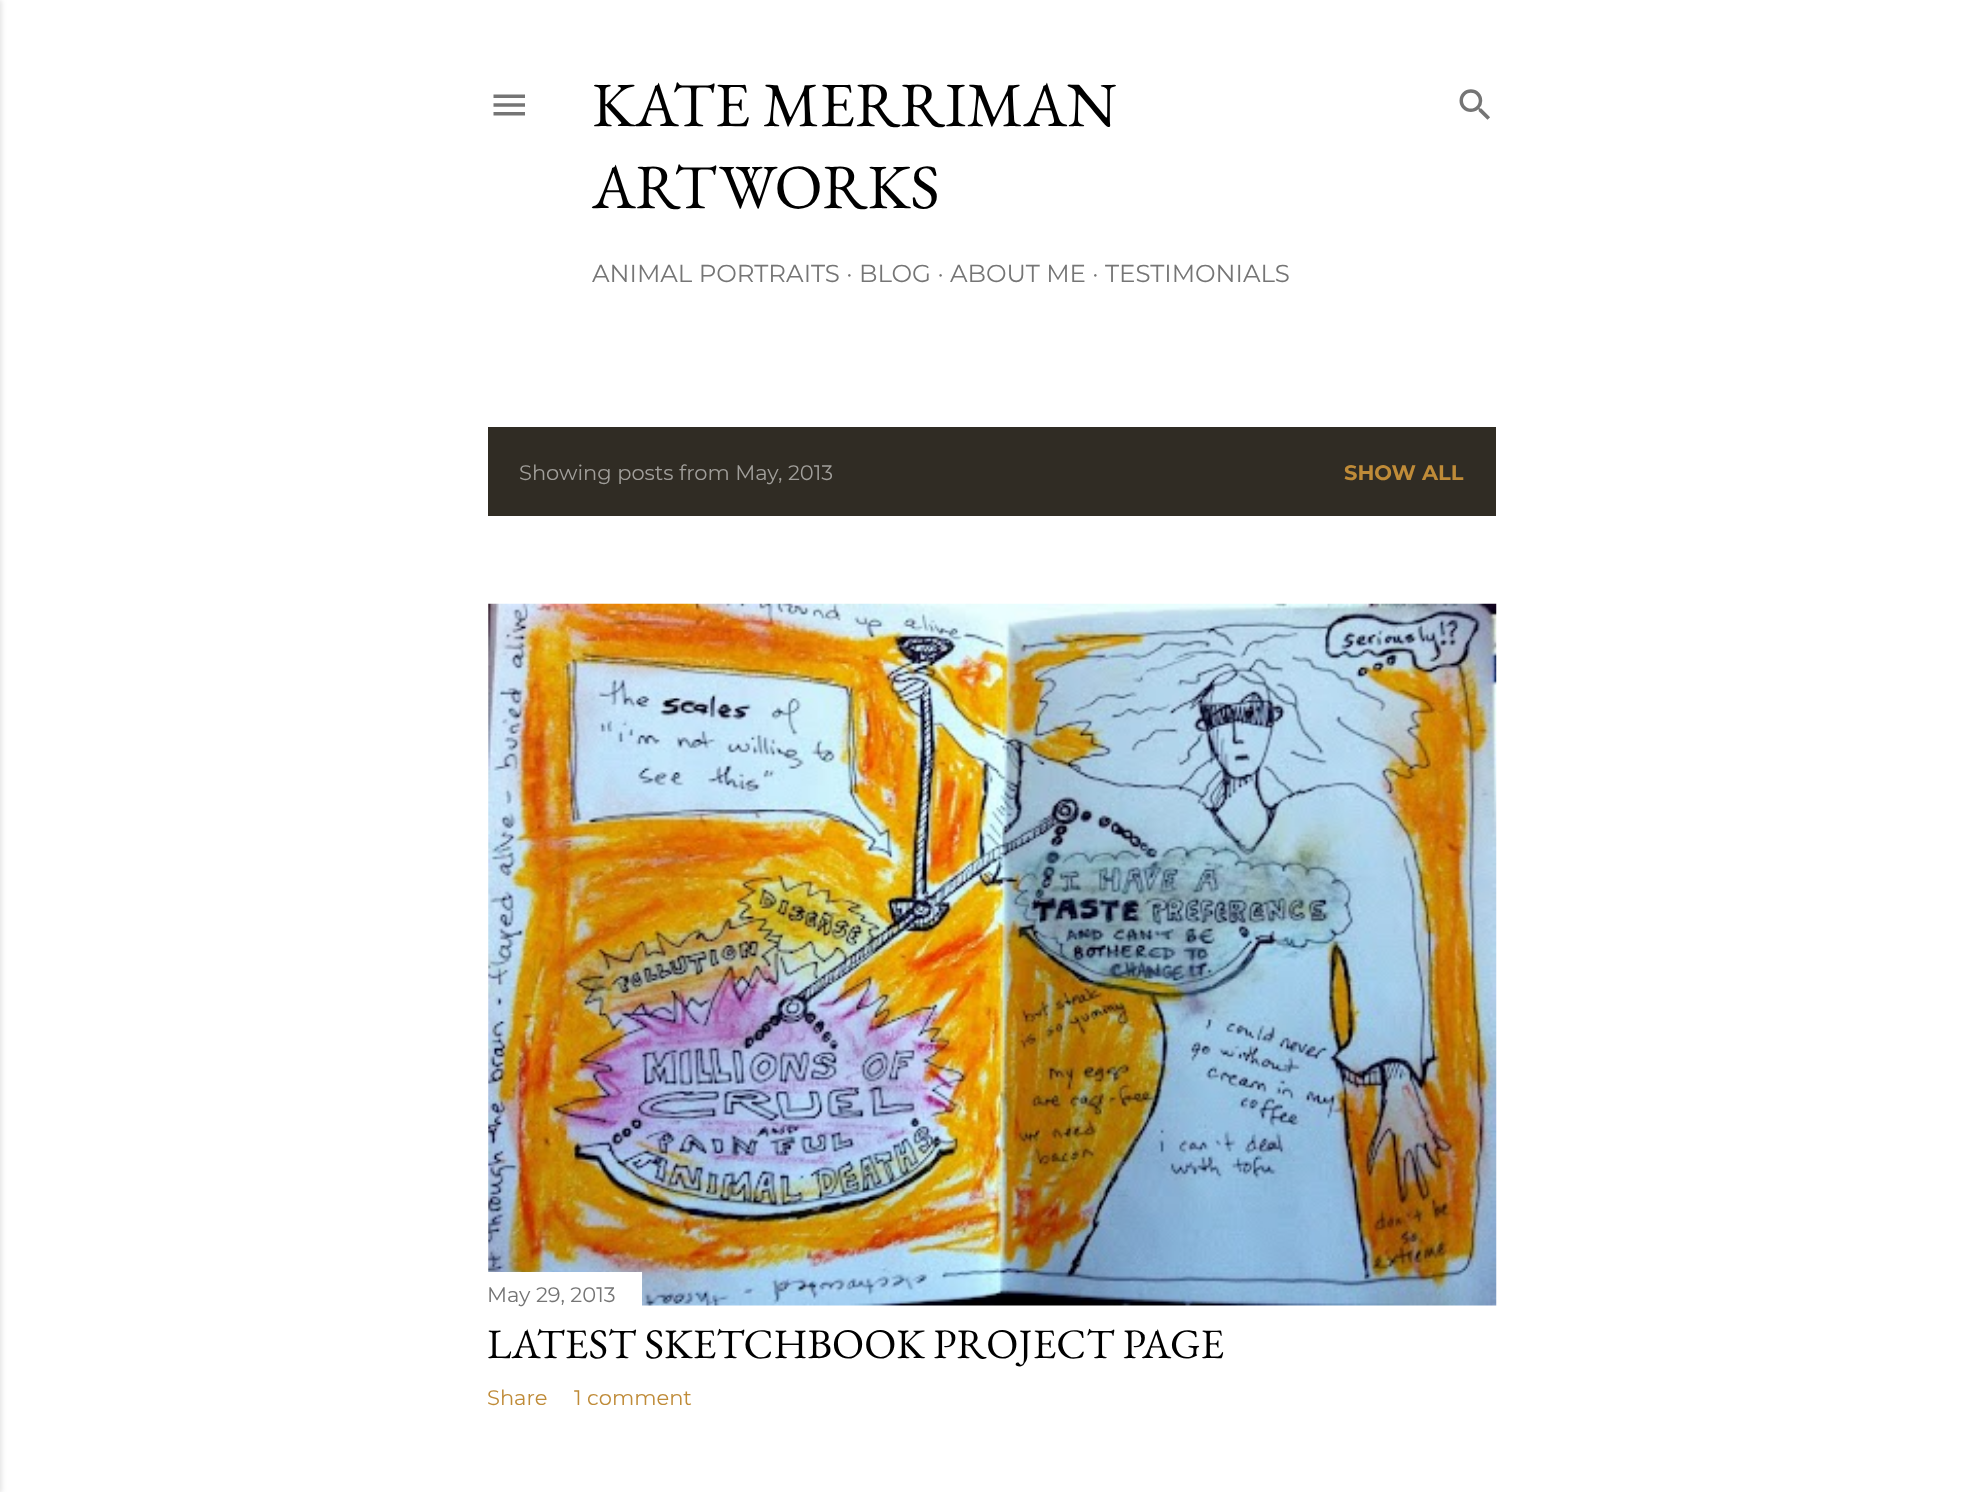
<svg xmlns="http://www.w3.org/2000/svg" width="1982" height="1492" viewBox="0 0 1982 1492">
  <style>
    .t1 { font: 63px EB Garamond; fill: #000; }
    .t2 { font: 24.5px Montserrat; fill: #757575; }
    .t3 { font: 21px Montserrat; fill: #a09e9a; }
    .t4 { font: bold 21px Montserrat; fill: #bf8b38; }
    .t5 { font: 21px Montserrat; fill: #757575; }
    .t6 { font: 42px EB Garamond; fill: #000; }
    .t7 { font: 21px Montserrat; fill: #bf8b38; }
  </style>
  <rect width="100%" height="100%" fill="#fff"/>
  <rect x="-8" y="0" width="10" height="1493" fill="#0000001a" filter="blur(2.5px)"/>
  <image x="493" y="94" width="32" height="22" href="images/1.png"/>
  <text x="592" y="126" class="t1">KATE MERRIMAN</text>
  <text x="592" y="208" class="t1">ARTWORKS</text>
  <text x="592" y="282" class="t2">ANIMAL PORTRAITS · BLOG · ABOUT ME · TESTIMONIALS</text>
  <image x="1459" y="89" width="31" height="31" href="images/2.png"/>
  <rect x="488" y="427" width="1008" height="89" fill="#302c24"/>
  <text x="519" y="480" class="t3">Showing posts from May, 2013</text>
  <text x="1344" y="480" class="t4">SHOW ALL</text>
  <image x="488" y="603" width="1009" height="703" href="images/3.png"/>
  <rect x="488" y="1272" width="154" height="34" fill="#fff"/>
  <text x="487" y="1302" class="t5">May 29, 2013</text>
  <text x="487" y="1358" class="t6">LATEST SKETCHBOOK PROJECT PAGE</text>
  <text x="487" y="1405" class="t7">Share</text>
  <text x="574" y="1405" class="t7">1 comment</text>
</svg>
